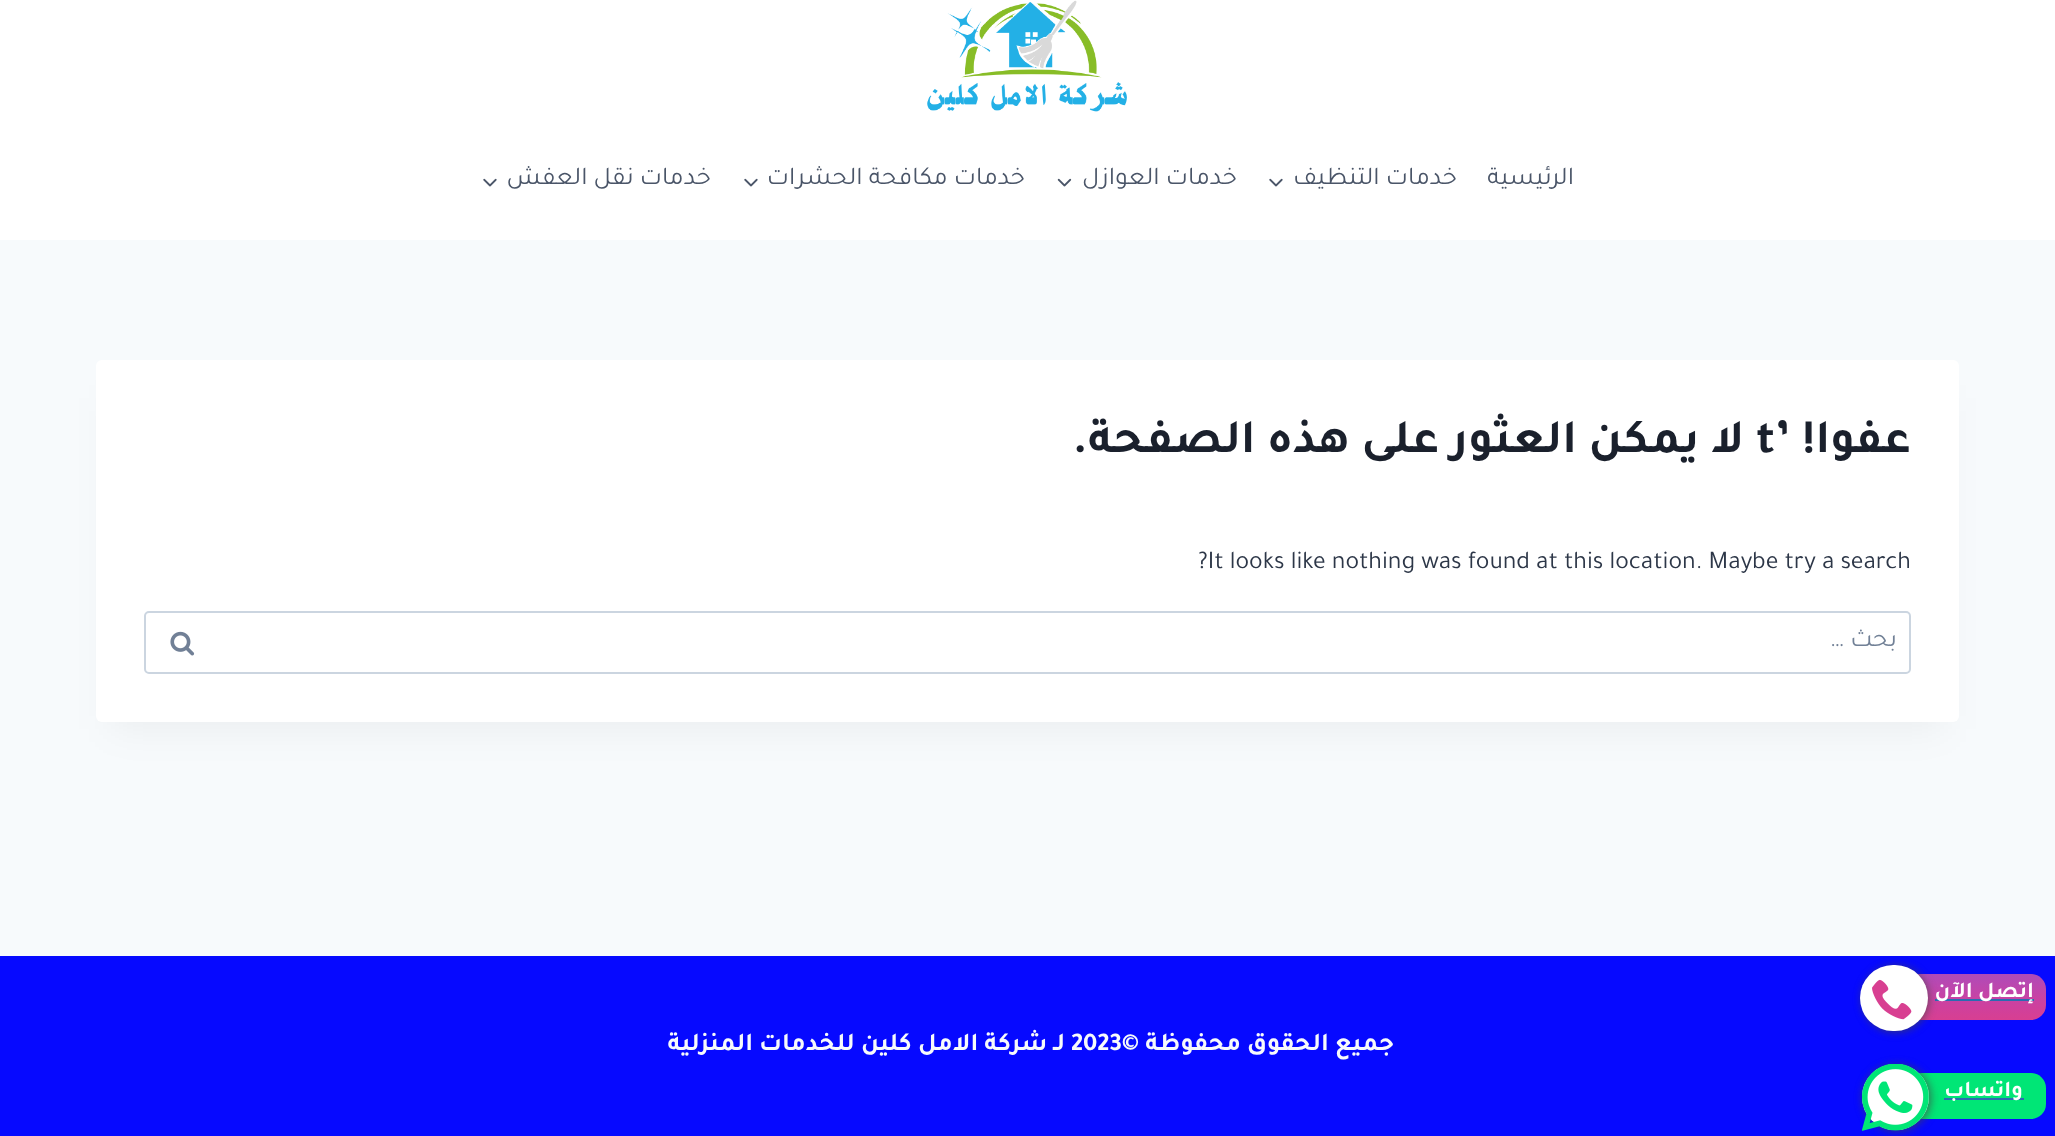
<svg xmlns="http://www.w3.org/2000/svg" width="2055" height="1136" viewBox="0 0 2055 1136">
  <style>
    .t1 { font: bold 22.5px Tajawal; direction: rtl; fill: #fff; }
    .t2 { font: 25.5px Tajawal; direction: rtl; fill: #4a5568; }
    .t3 { font: bold 48px Tajawal; direction: rtl; fill: #1a202c; }
    .t4 { font: bold 48px Tajawal; fill: #1a202c; }
    .t5 { font: 25.5px Tajawal; fill: #2d3748; }
    .t6 { font: 25.5px Tajawal; direction: rtl; fill: #718096; }
    .t7 { font: bold 25.5px Tajawal; direction: rtl; fill: #f7fafc; }
    .t8 { font: bold 25.5px Tajawal; fill: #f7fafc; }
  </style>
  <defs>
    <linearGradient id="g1" gradientUnits="userSpaceOnUse" x1="1976" y1="1020" x2="1976" y2="974"><stop offset="0" stop-color="#d83f91"/><stop offset="0.25" stop-color="#d0409b"/><stop offset="0.5" stop-color="#c743a5"/><stop offset="0.75" stop-color="#bb47af"/><stop offset="1" stop-color="#ae4bb8"/></linearGradient>
  </defs>
  <rect width="100%" height="100%" fill="#f7fafc"/>
  <rect x="0" y="956" width="2055" height="180" fill="#0609ff"/>
  <rect x="1905" y="974" width="141" height="46" rx="15" fill="url(#g1)"/>
  <rect x="1935" y="999" width="99" height="2" fill="#2b6cb0"/>
  <text x="2034" y="997" class="t1">إتصل الآن</text>
  <rect x="1862" y="966" width="67" height="66" rx="33" fill="#444444b5" filter="blur(4.5px)"/>
  <rect x="1860" y="965" width="68" height="66" rx="33" fill="#fff"/>
  <image x="1872" y="979" width="40" height="41" href="images/1.png"/>
  <rect x="1907" y="1073" width="139" height="46" rx="15" fill="#00e676"/>
  <rect x="1944" y="1098" width="80" height="2" fill="#2b6cb0"/>
  <text x="2023" y="1096" class="t1">واتساب</text>
  <rect x="1863" y="1065" width="68" height="66" rx="33" fill="#444444b5" filter="blur(4.5px)"/>
  <rect x="1862" y="1064" width="67" height="66" rx="33" fill="#fff"/>
  <image x="1862" y="1064" width="67" height="67" href="images/2.png"/>
  <rect x="0" y="0" width="2055" height="240" fill="#fff"/>
  <image x="927" y="0" width="200" height="112" href="images/3.png"/>
  <text x="1574" y="184" class="t2">الرئيسية</text>
  <text x="1457" y="184" class="t2">خدمات التنظيف</text>
  <image x="1269" y="178" width="14" height="9" href="images/4.png"/>
  <text x="1237" y="184" class="t2">خدمات العوازل</text>
  <image x="1057" y="178" width="15" height="9" href="images/5.png"/>
  <text x="1025" y="184" class="t2">خدمات مكافحة الحشرات</text>
  <image x="744" y="178" width="14" height="9" href="images/4.png"/>
  <text x="711" y="184" class="t2">خدمات نقل العفش</text>
  <image x="483" y="178" width="14" height="9" href="images/4.png"/>
  <rect x="111" y="398" width="1833" height="331" fill="#0000000d" filter="blur(19px)"/>
  <rect x="96" y="360" width="1863" height="362" rx="6" fill="#fff"/>
  <text x="1911" y="452" class="t3">عفوا! ’</text>
  <text x="1756" y="452" class="t4">t</text>
  <text x="1744" y="452" class="t3">لا يمكن العثور على هذه الصفحة.</text>
  <text x="1198" y="568" class="t5">?It looks like nothing was found at this location. Maybe try a search</text>
  <rect x="145" y="612" width="1765" height="61" rx="4" fill="none" stroke="#cbd5e0" stroke-width="2"/>
  <text x="1897" y="646" class="t6">بحث …</text>
  <image x="170" y="631" width="25" height="25" href="images/6.png"/>
  <text x="1394" y="1050" class="t7">جميع الحقوق محفوظة ©</text>
  <text x="1071" y="1050" class="t8">2023</text>
  <text x="1065" y="1050" class="t7">لـ شركة الامل كلين للخدمات المنزلية</text>
</svg>
